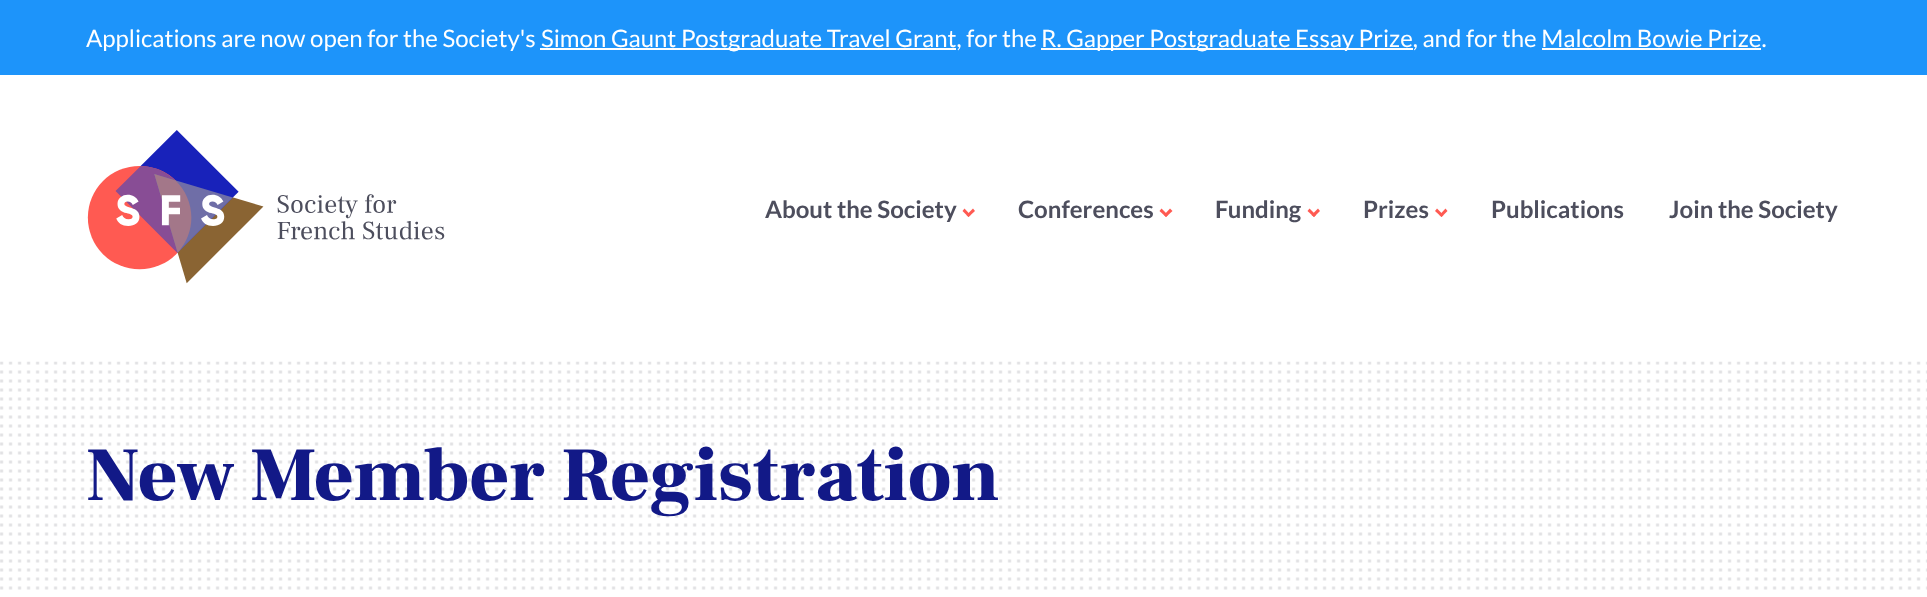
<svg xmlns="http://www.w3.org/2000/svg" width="1927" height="597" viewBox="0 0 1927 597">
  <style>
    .t1 { font: 24px Lato; fill: #fff; }
    .t2 { font: bold 24px Lato; fill: #4d4e5d; }
    .t3 { font: 900 76.5px Frank Ruhl Libre; fill: #121987; }
  </style>
  <rect width="100%" height="100%" fill="#fff"/>
  <rect x="0" y="0" width="1927" height="75" fill="#1d94fa"/>
  <text x="86" y="47" class="t1">Applications are now open for the Society's</text>
  <rect x="540" y="48" width="416" height="2" fill="#fff"/>
  <text x="541" y="47" class="t1">Simon Gaunt Postgraduate Travel Grant, for the</text>
  <rect x="1041" y="48" width="372" height="2" fill="#fff"/>
  <text x="1041" y="47" class="t1">R. Gapper Postgraduate Essay Prize, and for the Malcolm Bowie Prize.</text>
  <rect x="1542" y="48" width="219" height="2" fill="#fff"/>
  <image x="87" y="130" width="358" height="154" href="images/1.png"/>
  <text x="765" y="218" class="t2">About the Society</text>
  <path d="M973 208.5L975 211L968.5 217L966.5 215Z" fill="#ff5a52"/>
  <path d="M964.5 208.5L970.5 215L968.5 217L962.5 211Z" fill="#ff5a52"/>
  <text x="1018" y="218" class="t2">Conferences</text>
  <path d="M1170 208.5L1172.5 211L1166 217L1164 215Z" fill="#ff5a52"/>
  <path d="M1161.5 208.5L1168 215L1166 217L1159.5 211Z" fill="#ff5a52"/>
  <text x="1215" y="218" class="t2">Funding</text>
  <path d="M1318 208.5L1320 211L1314 217L1311.5 215Z" fill="#ff5a52"/>
  <path d="M1309.5 208.5L1316 215L1314 217L1307.5 211Z" fill="#ff5a52"/>
  <text x="1363" y="218" class="t2">Prizes</text>
  <path d="M1445.5 208.5L1447.5 211L1441.5 217L1439.5 215Z" fill="#ff5a52"/>
  <path d="M1437 208.5L1443.5 215L1441.5 217L1435 211Z" fill="#ff5a52"/>
  <text x="1491" y="218" class="t2">Publications</text>
  <text x="1669" y="218" class="t2">Join the Society</text>
  <image x="0" y="361" width="1927" height="229" href="images/2.png"/>
  <text x="86" y="500" class="t3">New Member Registration</text>
</svg>
